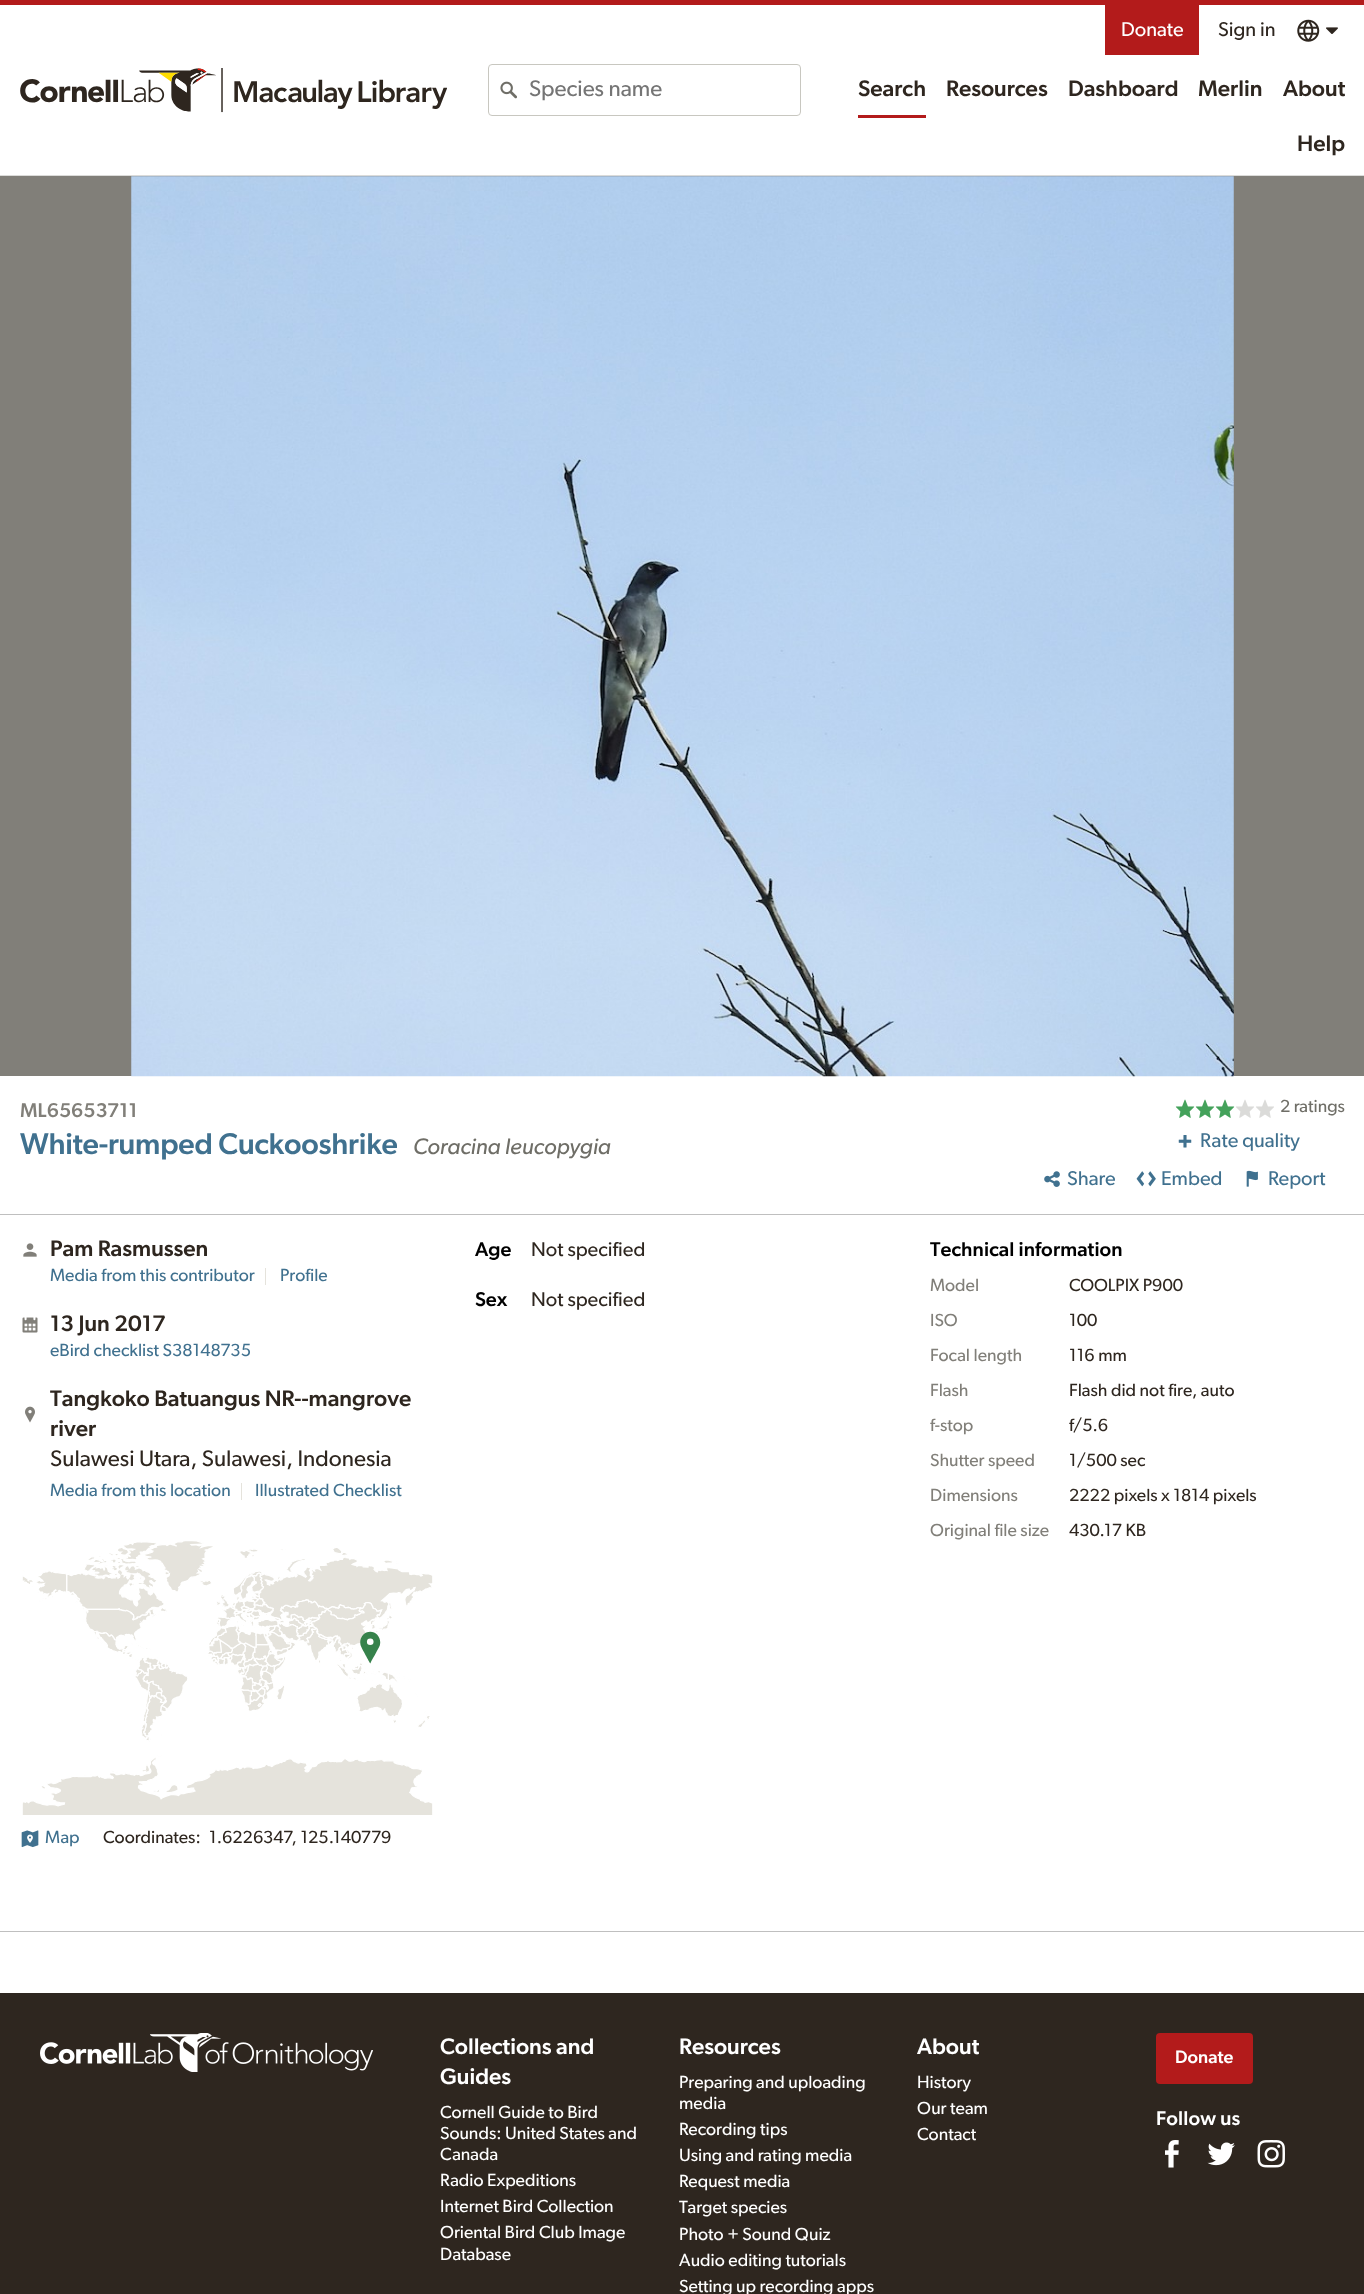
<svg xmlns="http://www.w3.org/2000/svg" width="1364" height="2294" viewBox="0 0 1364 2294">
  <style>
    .t1 { font: 22.6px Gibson; fill: #757575; }
    .t2 { font: 20px Gibson; fill: #fff; }
    .t3 { font: 20px Gibson; fill: #2e261f; }
    .t4 { font: 500 22.6px Gibson; fill: #2e261f; }
    .t5 { font: 500 20px Gibson; letter-spacing: 0.1px; fill: #817f79; }
    .t6 { font: 500 30px Gibson; letter-spacing: -0.2px; fill: #40718f; }
    .t7 { font: italic 22.6px Gibson; fill: #6f6e67; }
    .t8 { font: 17.6px Gibson; fill: #6f6e67; }
    .t9 { font: 20px Gibson; fill: #40718f; }
    .t10 { font: 17.6px Gibson; fill: #40718f; }
    .t11 { font: 22.6px Gibson; fill: #2e261f; }
    .t12 { font: 17.6px Gibson; fill: #2e261f; }
    .t13 { font: 500 20px Gibson; fill: #000; }
    .t14 { font: 500 20px Gibson; letter-spacing: 0.1px; fill: #000; }
    .t15 { font: 17.6px Gibson; fill: #817f79; }
    .t16 { font: 500 22.6px Gibson; fill: #fff; }
    .t17 { font: 17.6px Gibson; fill: #fff; }
    .t18 { font: 500 18px Gibson; fill: #fff; }
    .t19 { font: 500 20px Gibson; letter-spacing: 0.1px; fill: #fff; }
  </style>
  <rect width="100%" height="100%" fill="#fff"/>
  <rect x="0" y="0" width="1364" height="5" fill="#b31b1b"/>
  <rect x="0" y="175" width="1364" height="1" fill="#dbdbd9"/>
  <image x="20" y="68" width="427" height="45" href="images/1.png"/>
  <rect x="488.5" y="64.5" width="312" height="51" rx="3.5" fill="none" stroke="#c8c7c0"/>
  <image x="500" y="81" width="17" height="18" href="images/2.png"/>
  <text x="529" y="96" class="t1">Species name</text>
  <rect x="1105" y="5" width="94" height="50" fill="#b31b1b"/>
  <text x="1121" y="36" class="t2">Donate</text>
  <text x="1218" y="36" class="t3">Sign in</text>
  <image x="1297" y="19" width="23" height="23" href="images/3.png"/>
  <image x="1326" y="27" width="12" height="7" href="images/4.png"/>
  <rect x="858" y="115" width="68" height="3" fill="#b31b1b"/>
  <text x="858" y="96" class="t4">Search</text>
  <text x="946" y="96" class="t4">Resources</text>
  <text x="1068" y="96" class="t4">Dashboard</text>
  <text x="1198" y="96" class="t4">Merlin</text>
  <text x="1283" y="96" class="t4">About</text>
  <text x="1297" y="151" class="t4">Help</text>
  <rect x="0" y="176" width="1364" height="900" fill="#817f79"/>
  <image x="131" y="176" width="1103" height="901" href="images/5.png"/>
  <text x="20" y="1117" class="t5">ML65653711</text>
  <text x="20" y="1154" class="t6">White-rumped Cuckooshrike</text>
  <text x="413" y="1154" class="t7">Coracina leucopygia</text>
  <image x="1175" y="1099" width="20" height="19" href="images/6.png"/>
  <image x="1195" y="1099" width="20" height="19" href="images/6.png"/>
  <image x="1215" y="1099" width="20" height="19" href="images/6.png"/>
  <image x="1236" y="1099" width="18" height="19" href="images/7.png"/>
  <image x="1256" y="1099" width="18" height="19" href="images/7.png"/>
  <text x="1280" y="1112" class="t8">2 ratings</text>
  <image x="1178" y="1135" width="14" height="13" href="images/8.png"/>
  <text x="1200" y="1147" class="t9">Rate quality</text>
  <image x="1044" y="1171" width="16" height="16" href="images/9.png"/>
  <text x="1067" y="1185" class="t9">Share</text>
  <image x="1136" y="1171" width="20" height="16" href="images/10.png"/>
  <text x="1161" y="1185" class="t9">Embed</text>
  <image x="1246" y="1170" width="12" height="17" href="images/11.png"/>
  <text x="1268" y="1185" class="t9">Report</text>
  <rect x="0" y="1214" width="1364" height="1" fill="#bfbfbf"/>
  <image x="23" y="1243" width="14" height="14" href="images/12.png"/>
  <text x="50" y="1256" class="t4">Pam Rasmussen</text>
  <text x="50" y="1281" class="t10">Media from this contributor</text>
  <rect x="265" y="1268" width="1" height="17" fill="#e5e3dc"/>
  <text x="280" y="1281" class="t10">Profile</text>
  <image x="22" y="1317" width="16" height="16" href="images/13.png"/>
  <text x="50" y="1331" class="t4">13 Jun 2017</text>
  <text x="50" y="1356" class="t10">eBird checklist S38148735</text>
  <image x="25" y="1406" width="10" height="17" href="images/14.png"/>
  <text x="50" y="1406" class="t4">Tangkoko Batuangus NR--mangrove</text>
  <text x="50" y="1436" class="t4">river</text>
  <text x="50" y="1466" class="t11">Sulawesi Utara, Sulawesi, Indonesia</text>
  <text x="50" y="1496" class="t10">Media from this location</text>
  <rect x="241" y="1483" width="1" height="17" fill="#e5e3dc"/>
  <text x="255" y="1496" class="t10">Illustrated Checklist</text>
  <image x="22" y="1541" width="411" height="274" href="images/15.png"/>
  <image x="21" y="1830" width="18" height="18" href="images/16.png"/>
  <text x="45" y="1843" class="t10">Map</text>
  <text x="103" y="1843" class="t12">Coordinates:</text>
  <text x="209" y="1843" class="t12">1.6226347, 125.140779</text>
  <text x="475" y="1256" class="t13">Age</text>
  <text x="531" y="1256" class="t3">Not specified</text>
  <text x="475" y="1306" class="t13">Sex</text>
  <text x="531" y="1306" class="t3">Not specified</text>
  <text x="930" y="1256" class="t14">Technical information</text>
  <text x="930" y="1291" class="t15">Model</text>
  <text x="1069" y="1291" class="t12">COOLPIX P900</text>
  <text x="930" y="1326" class="t15">ISO</text>
  <text x="1069" y="1326" class="t12">100</text>
  <text x="930" y="1361" class="t15">Focal length</text>
  <text x="1069" y="1361" class="t12">116 mm</text>
  <text x="930" y="1396" class="t15">Flash</text>
  <text x="1069" y="1396" class="t12">Flash did not fire, auto</text>
  <text x="930" y="1431" class="t15">f-stop</text>
  <text x="1069" y="1431" class="t12">f/5.6</text>
  <text x="930" y="1466" class="t15">Shutter speed</text>
  <text x="1069" y="1466" class="t12">1/500 sec</text>
  <text x="930" y="1501" class="t15">Dimensions</text>
  <text x="1069" y="1501" class="t12">2222 pixels x 1814 pixels</text>
  <text x="930" y="1536" class="t15">Original file size</text>
  <text x="1069" y="1536" class="t12">430.17 KB</text>
  <rect x="0" y="1931" width="1364" height="1" fill="#bfbfbf"/>
  <rect x="0" y="1993" width="1364" height="301" fill="#2e261f"/>
  <image x="40" y="2033" width="333" height="39" href="images/17.png"/>
  <text x="440" y="2054" class="t16">Collections and</text>
  <text x="440" y="2084" class="t16">Guides</text>
  <text x="440" y="2118" class="t17">Cornell Guide to Bird</text>
  <text x="440" y="2139" class="t17">Sounds: United States and</text>
  <text x="440" y="2160" class="t17">Canada</text>
  <text x="440" y="2186" class="t17">Radio Expeditions</text>
  <text x="440" y="2212" class="t17">Internet Bird Collection</text>
  <text x="440" y="2238" class="t17">Oriental Bird Club Image</text>
  <text x="440" y="2260" class="t17">Database</text>
  <text x="679" y="2054" class="t16">Resources</text>
  <text x="679" y="2088" class="t17">Preparing and uploading</text>
  <text x="679" y="2109" class="t17">media</text>
  <text x="679" y="2135" class="t17">Recording tips</text>
  <text x="679" y="2161" class="t17">Using and rating media</text>
  <text x="679" y="2187" class="t17">Request media</text>
  <text x="679" y="2213" class="t17">Target species</text>
  <text x="679" y="2240" class="t17">Photo + Sound Quiz</text>
  <text x="679" y="2266" class="t17">Audio editing tutorials</text>
  <text x="679" y="2292" class="t17">Setting up recording apps</text>
  <text x="917" y="2054" class="t16">About</text>
  <text x="917" y="2088" class="t17">History</text>
  <text x="917" y="2114" class="t17">Our team</text>
  <text x="917" y="2140" class="t17">Contact</text>
  <rect x="1156" y="2033" width="97" height="51" rx="4" fill="#b31b1b"/>
  <text x="1175" y="2063" class="t18">Donate</text>
  <text x="1156" y="2125" class="t19">Follow us</text>
  <image x="1165" y="2140" width="14" height="28" href="images/18.png"/>
  <image x="1207" y="2142" width="28" height="24" href="images/19.png"/>
  <image x="1257" y="2140" width="28" height="28" href="images/20.png"/>
</svg>
